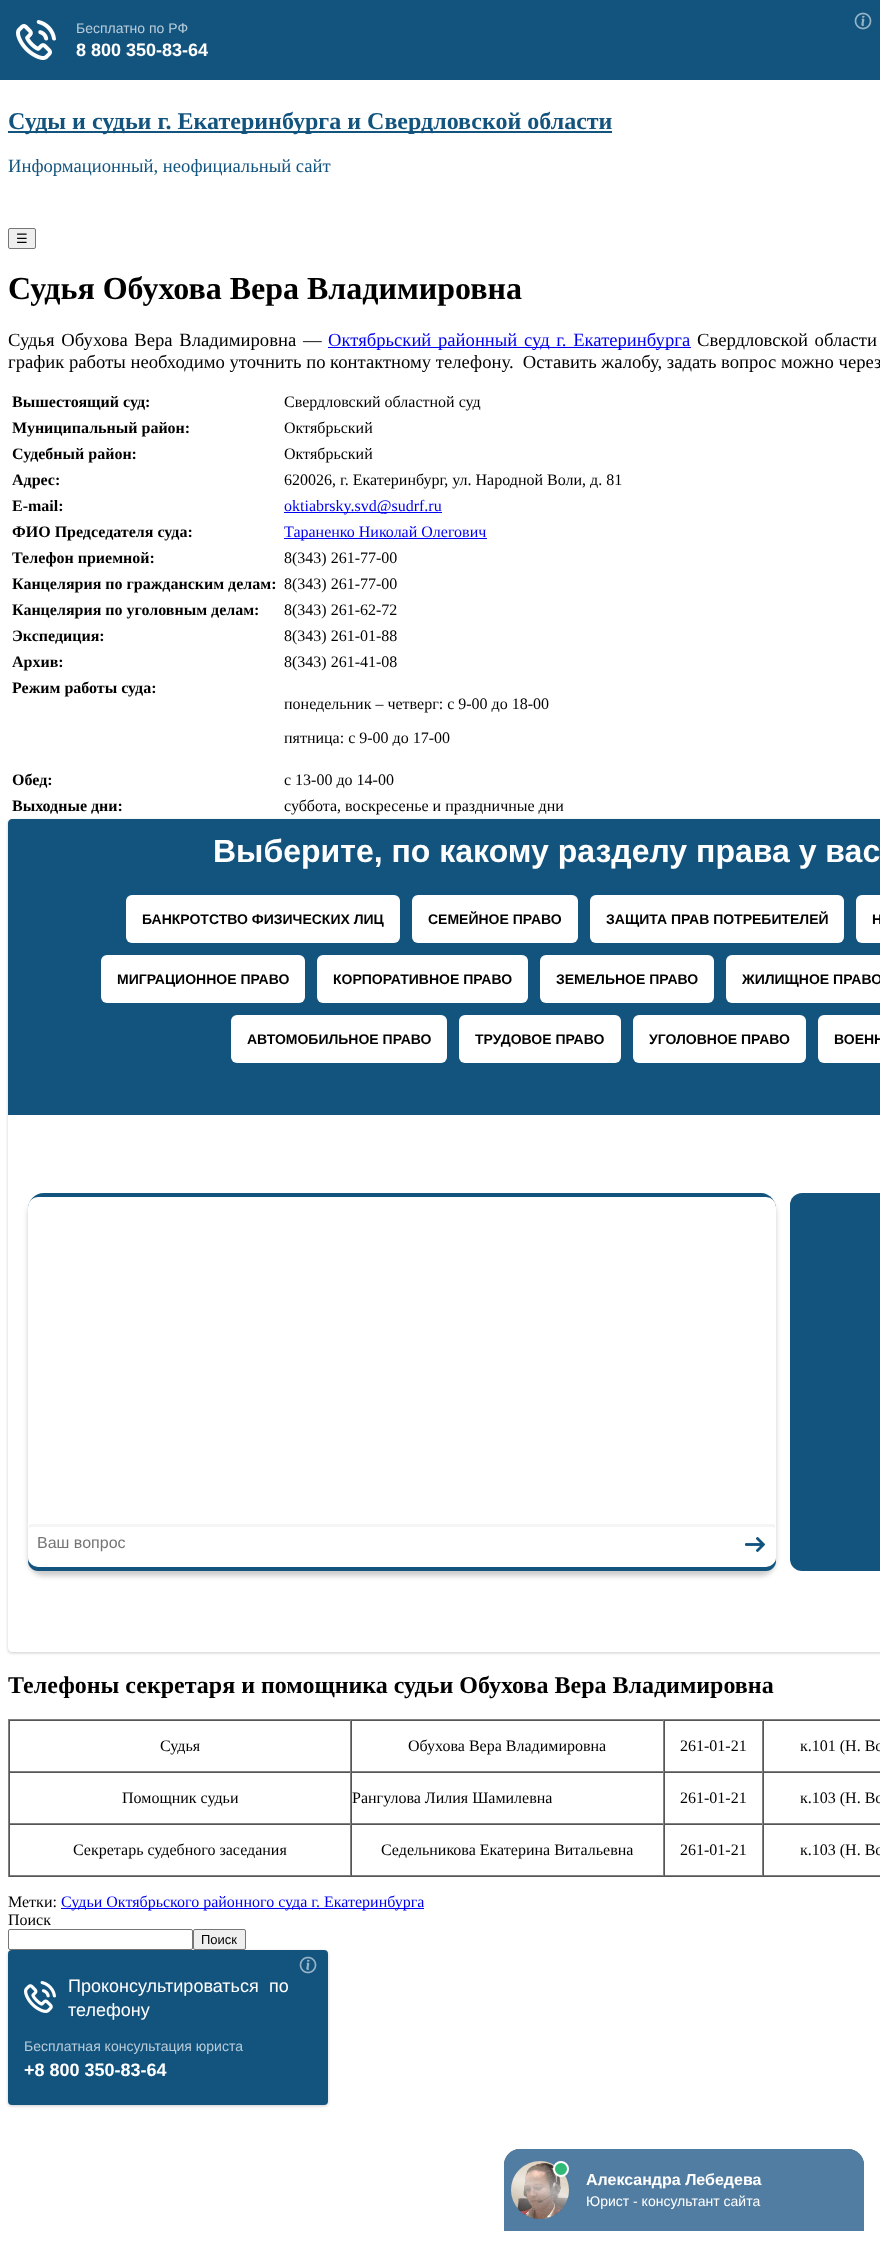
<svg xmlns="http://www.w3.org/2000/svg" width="880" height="2247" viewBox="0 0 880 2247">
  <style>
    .t1 { font: 14px Liberation Sans; fill: #b8ccd9; }
    .t2 { font: bold 18px Liberation Sans; fill: #fff; }
    .t3 { font: bold 24px Liberation Serif; fill: #13547f; }
    .t4 { font: 18.65px Liberation Serif; fill: #13547f; }
    .t5 { font: 13px DejaVu Sans; fill: #000; }
    .t6 { font: bold 32px Liberation Serif; fill: #000; }
    .t7 { font: 18.65px Liberation Serif; fill: #000; }
    .t8 { font: 18.65px Liberation Serif; fill: #00e; }
    .t9 { font: bold 16px Liberation Serif; fill: #000; }
    .t10 { font: 16px Liberation Serif; fill: #000; }
    .t11 { font: 16px Liberation Serif; fill: #00e; }
    .t12 { font: bold 32px Liberation Sans; fill: #fff; }
    .t13 { font: bold 14px Liberation Sans; fill: #000; }
    .t14 { font: 16px Liberation Sans; fill: #757575; }
    .t15 { font: bold 24px Liberation Serif; fill: #000; }
    .t16 { font: 13px Liberation Sans; fill: #000; }
    .t17 { font: 18px Liberation Sans; fill: #fff; }
    .t18 { font: bold 16px Liberation Sans; fill: #fff; }
    .t19 { font: 14px Liberation Sans; fill: #fff; }
  </style>
  <defs>
    <clipPath id="clip1"><rect x="28" y="1197" width="748" height="370" rx="10"/></clipPath>
    <linearGradient id="g1" gradientUnits="userSpaceOnUse" x1="550" y1="2166" x2="530" y2="2221"><stop offset="0" stop-color="#fff" stop-opacity="0"/><stop offset="0.4" stop-color="#fff" stop-opacity="0.6"/><stop offset="0.6" stop-color="#fff" stop-opacity="0.36"/><stop offset="1" stop-color="#fff" stop-opacity="0"/></linearGradient>
  </defs>
  <rect width="100%" height="100%" fill="#fff"/>
  <rect x="0" y="0" width="880" height="80" fill="#13547f"/>
  <image x="854" y="12" width="18" height="18" href="images/1.png"/>
  <image x="16" y="20" width="40" height="40" href="images/2.png"/>
  <text x="76" y="33" class="t1">Бесплатно по РФ</text>
  <text x="76" y="56" class="t2">8 800 350-83-64</text>
  <rect x="8" y="131" width="604" height="2" fill="#13547f"/>
  <text x="8" y="129" class="t3">Суды и судьи г. Екатеринбурга и Свердловской области</text>
  <text x="8" y="172" class="t4">Информационный, неофициальный сайт</text>
  <rect x="8.5" y="228.5" width="27" height="20" rx="1.5" fill="#efefef" stroke="#767676"/>
  <text x="16" y="243" class="t5">☰</text>
  <text x="8" y="299" class="t6">Судья Обухова Вера Владимировна</text>
  <text x="8" y="346" word-spacing="2" class="t7">Судья Обухова Вера Владимировна</text>
  <text x="303" y="346" class="t7">—</text>
  <rect x="328" y="347" width="363" height="1" fill="#00e"/>
  <text x="328" y="346" word-spacing="2" class="t8">Октябрьский районный суд г. Екатеринбурга</text>
  <text x="697" y="346" word-spacing="2" class="t7">Свердловской области</text>
  <text x="8" y="368" class="t7" xml:space="preserve">график работы необходимо уточнить по контактному телефону.  Оставить жалобу, задать вопрос можно через</text>
  <text x="12" y="407" class="t9">Вышестоящий суд:</text>
  <text x="284" y="407" class="t10">Свердловский областной суд</text>
  <text x="12" y="433" class="t9">Муниципальный район:</text>
  <text x="284" y="433" class="t10">Октябрьский</text>
  <text x="12" y="459" class="t9">Судебный район:</text>
  <text x="284" y="459" class="t10">Октябрьский</text>
  <text x="12" y="485" class="t9">Адрес:</text>
  <text x="284" y="485" class="t10">620026, г. Екатеринбург, ул. Народной Воли, д. 81</text>
  <text x="12" y="511" class="t9">E-mail:</text>
  <rect x="284" y="512" width="158" height="1" fill="#00e"/>
  <text x="284" y="511" class="t11">oktiabrsky.svd@sudrf.ru</text>
  <text x="12" y="537" class="t9">ФИО Председателя суда:</text>
  <rect x="284" y="538" width="203" height="1" fill="#00e"/>
  <text x="284" y="537" class="t11">Тараненко Николай Олегович</text>
  <text x="12" y="563" class="t9">Телефон приемной:</text>
  <text x="284" y="563" class="t10">8(343) 261-77-00</text>
  <text x="12" y="589" class="t9">Канцелярия по гражданским делам:</text>
  <text x="284" y="589" class="t10">8(343) 261-77-00</text>
  <text x="12" y="615" class="t9">Канцелярия по уголовным делам:</text>
  <text x="284" y="615" class="t10">8(343) 261-62-72</text>
  <text x="12" y="641" class="t9">Экспедиция:</text>
  <text x="284" y="641" class="t10">8(343) 261-01-88</text>
  <text x="12" y="667" class="t9">Архив:</text>
  <text x="284" y="667" class="t10">8(343) 261-41-08</text>
  <text x="12" y="693" class="t9">Режим работы суда:</text>
  <text x="284" y="709" class="t10">понедельник – четверг: с 9-00 до 18-00</text>
  <text x="284" y="743" class="t10">пятница: с 9-00 до 17-00</text>
  <text x="12" y="785" class="t9">Обед:</text>
  <text x="284" y="785" class="t10">с 13-00 до 14-00</text>
  <text x="12" y="811" class="t9">Выходные дни:</text>
  <text x="284" y="811" class="t10">суббота, воскресенье и праздничные дни</text>
  <rect x="8" y="820" width="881" height="833" rx="4" fill="#00000033" filter="blur(1.5px)"/>
  <path d="M12 819H880C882 819 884 821 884 823V1115H8V823C8 821 10 819 12 819Z" fill="#13547f"/>
  <text x="213" y="862" class="t12">Выберите, по какому разделу права у вас</text>
  <rect x="126" y="895" width="274" height="48" rx="6" fill="#fff"/>
  <text x="142" y="924" class="t13">БАНКРОТСТВО ФИЗИЧЕСКИХ ЛИЦ</text>
  <rect x="412" y="895" width="166" height="48" rx="6" fill="#fff"/>
  <text x="428" y="924" class="t13">СЕМЕЙНОЕ ПРАВО</text>
  <rect x="590" y="895" width="254" height="48" rx="6" fill="#fff"/>
  <text x="606" y="924" class="t13">ЗАЩИТА ПРАВ ПОТРЕБИТЕЛЕЙ</text>
  <rect x="856" y="895" width="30" height="48" rx="6" fill="#fff"/>
  <text x="872" y="924" class="t13">Н</text>
  <rect x="101" y="955" width="204" height="48" rx="6" fill="#fff"/>
  <text x="117" y="984" class="t13">МИГРАЦИОННОЕ ПРАВО</text>
  <rect x="317" y="955" width="211" height="48" rx="6" fill="#fff"/>
  <text x="333" y="984" class="t13">КОРПОРАТИВНОЕ ПРАВО</text>
  <rect x="540" y="955" width="174" height="48" rx="6" fill="#fff"/>
  <text x="556" y="984" class="t13">ЗЕМЕЛЬНОЕ ПРАВО</text>
  <rect x="726" y="955" width="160" height="48" rx="6" fill="#fff"/>
  <text x="742" y="984" class="t13">ЖИЛИЩНОЕ ПРАВО</text>
  <rect x="231" y="1015" width="216" height="48" rx="6" fill="#fff"/>
  <text x="247" y="1044" class="t13">АВТОМОБИЛЬНОЕ ПРАВО</text>
  <rect x="459" y="1015" width="162" height="48" rx="6" fill="#fff"/>
  <text x="475" y="1044" class="t13">ТРУДОВОЕ ПРАВО</text>
  <rect x="633" y="1015" width="173" height="48" rx="6" fill="#fff"/>
  <text x="649" y="1044" class="t13">УГОЛОВНОЕ ПРАВО</text>
  <rect x="818" y="1015" width="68" height="48" rx="6" fill="#fff"/>
  <text x="834" y="1044" class="t13">ВОЕНН</text>
  <path d="M8 1115H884V1648C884 1650 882 1652 880 1652H12C10 1652 8 1650 8 1648Z" fill="#fff"/>
  <rect x="28" y="1198" width="748" height="378" rx="16" fill="#00000033" filter="blur(2.5px)"/>
  <path d="M44 1193H760C769 1193 776 1200 776 1209V1561C776 1566.5 771.5 1571 766 1571H38C32.5 1571 28 1566.5 28 1561V1209C28 1200 35 1193 44 1193Z" fill="#13547f"/>
  <rect x="28" y="1197" width="748" height="370" rx="10" fill="#fff"/>
  <g clip-path="url(#clip1)">
    <rect x="28" y="1523" width="748" height="40" rx="3" fill="#fff"/>
  </g>
  <path d="M31 1527C30 1527 29 1528 29 1529C29 1527 28 1524 31 1524H774L775 1525V1529C775 1528 774 1527 773 1527Z" fill="#f5f5f5"/>
  <text x="37" y="1548" class="t14">Ваш вопрос</text>
  <image x="745" y="1537" width="20" height="15" href="images/3.png"/>
  <rect x="790" y="1193" width="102" height="378" rx="12" fill="#13547f"/>
  <text x="8" y="1693" class="t15">Телефоны секретаря и помощника судьи Обухова Вера Владимировна</text>
  <rect x="8" y="1719" width="872" height="1" fill="#808080"/>
  <rect x="8" y="1876" width="872" height="1" fill="#555"/>
  <rect x="8" y="1719" width="1" height="158" fill="#808080"/>
  <rect x="9" y="1720" width="871" height="1" fill="#555"/>
  <rect x="350" y="1720" width="1" height="52" fill="#808080"/>
  <rect x="9" y="1771" width="342" height="1" fill="#808080"/>
  <rect x="9" y="1720" width="1" height="52" fill="#555"/>
  <text x="160" y="1751" class="t10">Судья</text>
  <rect x="663" y="1720" width="1" height="52" fill="#808080"/>
  <rect x="351" y="1771" width="313" height="1" fill="#808080"/>
  <rect x="351" y="1720" width="1" height="52" fill="#555"/>
  <text x="408" y="1751" class="t10">Обухова Вера Владимировна</text>
  <rect x="762" y="1720" width="1" height="52" fill="#808080"/>
  <rect x="664" y="1771" width="216" height="1" fill="#808080"/>
  <rect x="664" y="1720" width="1" height="52" fill="#555"/>
  <text x="680" y="1751" class="t10">261-01-21</text>
  <rect x="763" y="1720" width="1" height="52" fill="#555"/>
  <text x="800" y="1751" class="t10">к.101 (Н. Во</text>
  <rect x="9" y="1772" width="871" height="1" fill="#555"/>
  <rect x="350" y="1772" width="1" height="52" fill="#808080"/>
  <rect x="9" y="1823" width="342" height="1" fill="#808080"/>
  <rect x="9" y="1772" width="1" height="52" fill="#555"/>
  <text x="122" y="1803" class="t10">Помощник судьи</text>
  <rect x="663" y="1772" width="1" height="52" fill="#808080"/>
  <rect x="351" y="1823" width="313" height="1" fill="#808080"/>
  <rect x="351" y="1772" width="1" height="52" fill="#555"/>
  <text x="352" y="1803" class="t10">Рангулова Лилия Шамилевна</text>
  <rect x="762" y="1772" width="1" height="52" fill="#808080"/>
  <rect x="664" y="1823" width="216" height="1" fill="#808080"/>
  <rect x="664" y="1772" width="1" height="52" fill="#555"/>
  <text x="680" y="1803" class="t10">261-01-21</text>
  <rect x="763" y="1772" width="1" height="52" fill="#555"/>
  <text x="800" y="1803" class="t10">к.103 (Н. Во</text>
  <rect x="9" y="1824" width="871" height="1" fill="#555"/>
  <rect x="350" y="1824" width="1" height="52" fill="#808080"/>
  <rect x="9" y="1875" width="342" height="1" fill="#808080"/>
  <rect x="9" y="1824" width="1" height="52" fill="#555"/>
  <text x="73" y="1855" class="t10">Секретарь судебного заседания</text>
  <rect x="663" y="1824" width="1" height="52" fill="#808080"/>
  <rect x="351" y="1875" width="313" height="1" fill="#808080"/>
  <rect x="351" y="1824" width="1" height="52" fill="#555"/>
  <text x="381" y="1855" class="t10">Седельникова Екатерина Витальевна</text>
  <rect x="762" y="1824" width="1" height="52" fill="#808080"/>
  <rect x="664" y="1875" width="216" height="1" fill="#808080"/>
  <rect x="664" y="1824" width="1" height="52" fill="#555"/>
  <text x="680" y="1855" class="t10">261-01-21</text>
  <rect x="763" y="1824" width="1" height="52" fill="#555"/>
  <text x="800" y="1855" class="t10">к.103 (Н. Во</text>
  <text x="8" y="1907" class="t10">Метки:</text>
  <rect x="61" y="1908" width="363" height="1" fill="#00e"/>
  <text x="61" y="1907" class="t11">Судьи Октябрьского районного суда г. Екатеринбурга</text>
  <text x="8" y="1925" class="t10">Поиск</text>
  <rect x="8.5" y="1929.5" width="184" height="20" rx="1.5" fill="none" stroke="#767676"/>
  <rect x="193.5" y="1929.5" width="52" height="20" rx="1.5" fill="#efefef" stroke="#767676"/>
  <text x="201" y="1944" class="t16">Поиск</text>
  <rect x="8" y="1951" width="320" height="155" rx="4" fill="#00000033" filter="blur(1.5px)"/>
  <rect x="8" y="1950" width="320" height="155" rx="4" fill="#13547f"/>
  <image x="299" y="1956" width="18" height="18" href="images/1.png"/>
  <image x="24" y="1981" width="32" height="32" href="images/4.png"/>
  <text x="68" y="1992" class="t17">Проконсультироваться</text>
  <text x="269" y="1992" class="t17">по</text>
  <text x="68" y="2016" class="t17">телефону</text>
  <text x="24" y="2051" class="t1">Бесплатная консультация юриста</text>
  <text x="24" y="2076" class="t2">+8 800 350-83-64</text>
  <rect x="504" y="2149" width="360" height="82" rx="16" fill="#00000099" filter="blur(0.5px)"/>
  <path d="M520 2149H848C857 2149 864 2156 864 2165V2231H504V2165C504 2156 511 2149 520 2149Z" fill="#517da2"/>
  <circle cx="540" cy="2190" r="29" fill="#3d5e7a"/>
  <image x="511" y="2161" width="58" height="58" href="images/5.png"/>
  <path d="M537 2161L561 2170C566 2175 569 2182 569 2190C569 2206 556 2219 540 2219C524 2219 511 2206 511 2190C511 2175 522 2163 537 2161Z" fill="url(#g1)"/>
  <circle cx="561" cy="2169" r="7" fill="#31b978" stroke="#fff" stroke-width="2"/>
  <text x="586" y="2185" class="t18">Александра Лебедева</text>
  <text x="586" y="2206" class="t19">Юрист - консультант сайта</text>
</svg>
